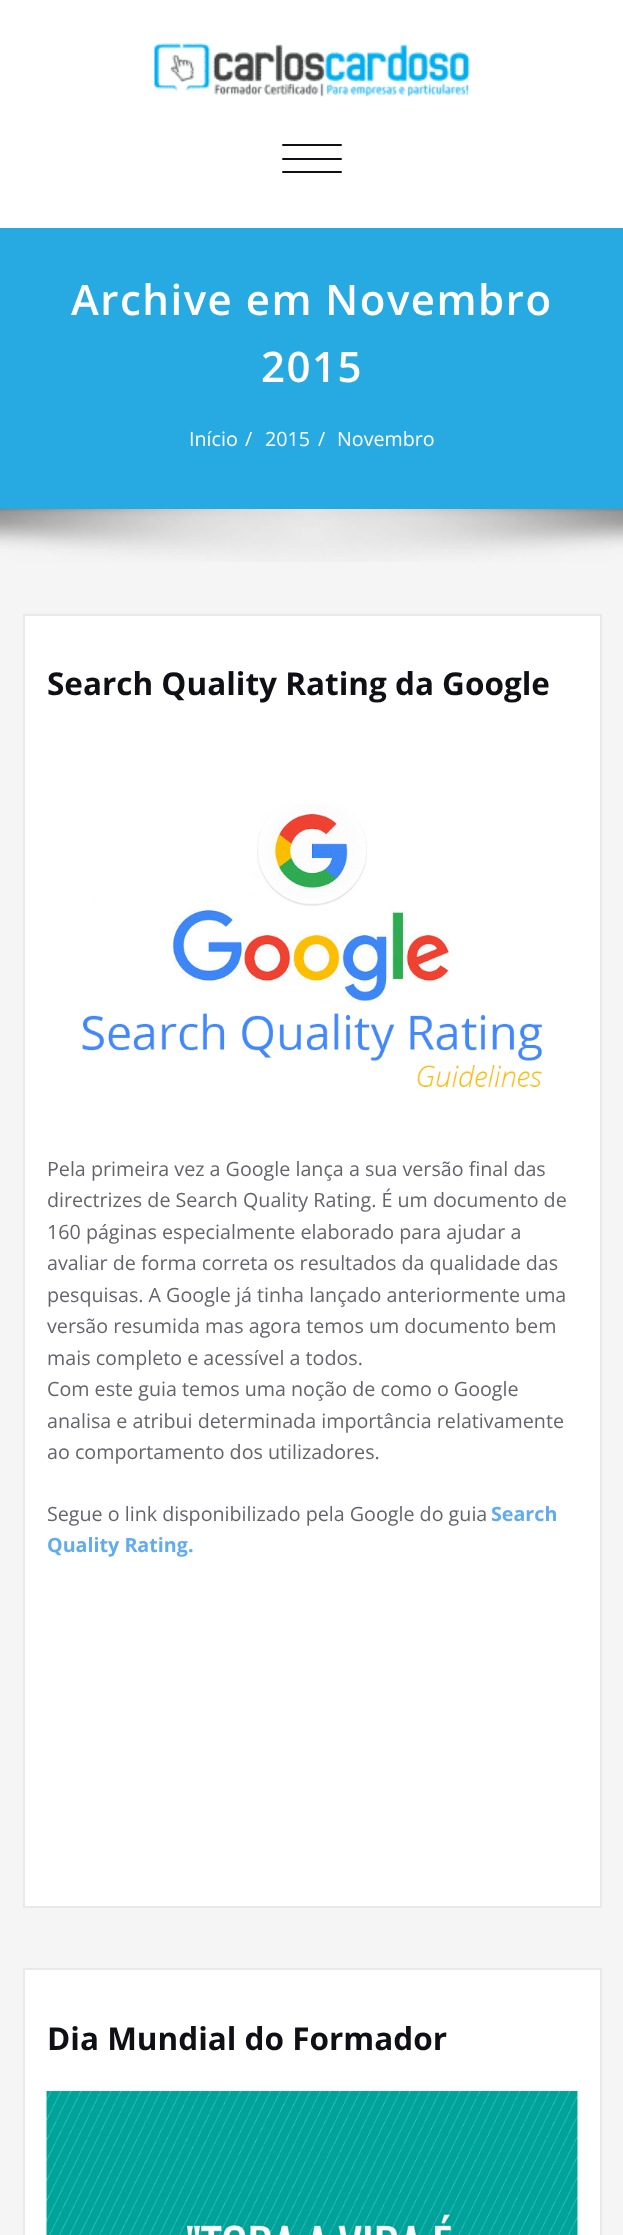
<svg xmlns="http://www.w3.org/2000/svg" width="623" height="2235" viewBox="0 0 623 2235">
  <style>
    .t1 { font: 600 42px Open Sans; letter-spacing: 1.5px; fill: #fff; }
    .t2 { font: 19.7px Open Sans; fill: #fff; }
    .t3 { font: bold 31.5px Open Sans; fill: #0f0f16; }
    .t4 { font: 19.7px Open Sans; fill: #64646d; }
    .t5 { font: bold 19.7px Open Sans; fill: #61aced; }
  </style>
  <rect width="100%" height="100%" fill="#f5f5f5"/>
  <rect x="0" y="0" width="623" height="228" fill="#fff"/>
  <image x="154" y="43" width="316" height="54" href="images/1.png"/>
  <rect x="282" y="144" width="60" height="2" rx="1" fill="#0f0f16"/>
  <rect x="282" y="158" width="60" height="2" rx="1" fill="#0f0f16"/>
  <rect x="282" y="171" width="60" height="2" rx="1" fill="#0f0f16"/>
  <rect x="0" y="228" width="623" height="281" fill="#27aae2"/>
  <text x="71" y="315" class="t1">Archive em Novembro</text>
  <text x="261" y="382" class="t1">2015</text>
  <text x="189" y="446" class="t2">Início</text>
  <text x="245" y="446" class="t2">/</text>
  <text x="265" y="446" class="t2">2015</text>
  <text x="318" y="446" class="t2">/</text>
  <text x="337" y="446" class="t2">Novembro</text>
  <image x="0" y="509" width="623" height="53" href="images/2.png"/>
  <rect x="24" y="615" width="577" height="1292" fill="#fff" stroke="#e9e9e9" stroke-width="2"/>
  <text x="47" y="695" class="t3">Search Quality Rating da Google</text>
  <image x="82" y="804" width="461" height="283" href="images/3.png"/>
  <text x="47" y="1176" class="t4">Pela primeira vez a Google lança a sua versão final das</text>
  <text x="47" y="1207" class="t4">directrizes de Search Quality Rating. É um documento de</text>
  <text x="47" y="1239" class="t4">160 páginas especialmente elaborado para ajudar a</text>
  <text x="47" y="1270" class="t4">avaliar de forma correta os resultados da qualidade das</text>
  <text x="47" y="1302" class="t4">pesquisas. A Google já tinha lançado anteriormente uma</text>
  <text x="47" y="1333" class="t4">versão resumida mas agora temos um documento bem</text>
  <text x="47" y="1365" class="t4">mais completo e acessível a todos.</text>
  <text x="47" y="1396" class="t4">Com este guia temos uma noção de como o Google</text>
  <text x="47" y="1428" class="t4">analisa e atribui determinada importância relativamente</text>
  <text x="47" y="1459" class="t4">ao comportamento dos utilizadores.</text>
  <text x="47" y="1521" class="t4">Segue o link disponibilizado pela Google do guia</text>
  <text x="491" y="1521" class="t5">Search</text>
  <text x="47" y="1552" class="t5">Quality Rating.</text>
  <rect x="24" y="1969" width="577" height="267" fill="#fff" stroke="#e9e9e9" stroke-width="2"/>
  <text x="47" y="2050" class="t3">Dia Mundial do Formador</text>
  <image x="46" y="2091" width="532" height="144" href="images/4.png"/>
</svg>
